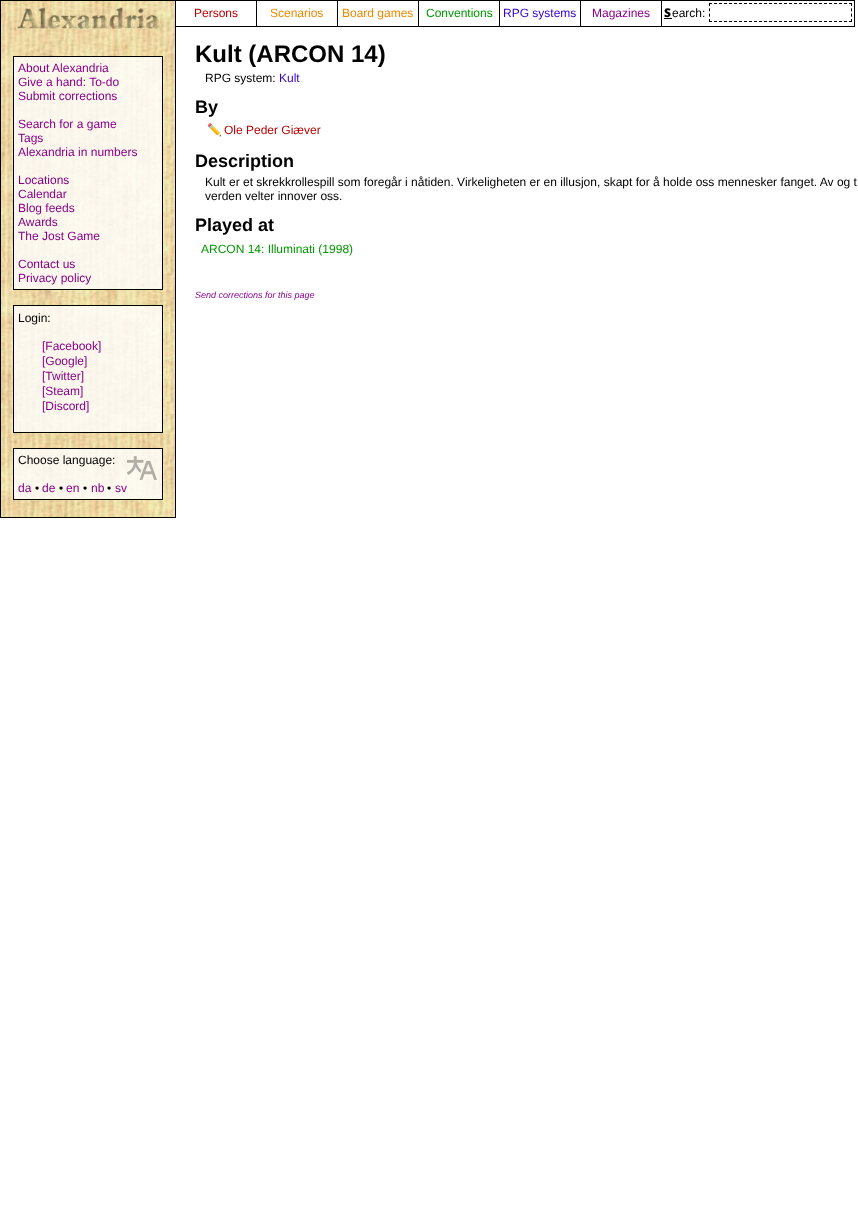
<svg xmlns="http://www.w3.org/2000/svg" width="858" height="1227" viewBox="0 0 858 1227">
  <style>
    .t1 { font: 12px Liberation Sans; fill: #b00; }
    .t2 { font: 12px Liberation Sans; fill: #e80; }
    .t3 { font: 12px Liberation Sans; fill: #090; }
    .t4 { font: 12px Liberation Sans; fill: #30c; }
    .t5 { font: 12px Liberation Sans; fill: #808; }
    .t6 { font: 900 12px Noto Sans; fill: #000; }
    .t7 { font: 12px Liberation Sans; fill: #000; }
    .t8 { font: bold 24px Liberation Sans; fill: #000; }
    .t9 { font: bold 18px Liberation Sans; fill: #000; }
    .t10 { font: 12px Noto Color Emoji; fill: #000; }
    .t11 { font: italic 9px Liberation Sans; fill: #808; }
  </style>
  <rect width="100%" height="100%" fill="#fff"/>
  <image x="1" y="1" width="174" height="516" href="images/1.png"/>
  <rect x="0.5" y="0.5" width="175" height="517" fill="none" stroke="#000"/>
  <rect x="175.5" y="0.5" width="679" height="26" fill="none" stroke="#000"/>
  <rect x="256" y="1" width="1" height="25" fill="#000"/>
  <text x="194" y="17" class="t1">Persons</text>
  <rect x="337" y="1" width="1" height="25" fill="#000"/>
  <text x="270" y="17" class="t2">Scenarios</text>
  <rect x="418" y="1" width="1" height="25" fill="#000"/>
  <text x="342" y="17" class="t2">Board games</text>
  <rect x="499" y="1" width="1" height="25" fill="#000"/>
  <text x="426" y="17" class="t3">Conventions</text>
  <rect x="580" y="1" width="1" height="25" fill="#000"/>
  <text x="503" y="17" class="t4">RPG systems</text>
  <rect x="661" y="1" width="1" height="25" fill="#000"/>
  <text x="592" y="17" class="t5">Magazines</text>
  <text x="664" y="17" class="t6">S</text>
  <rect x="664" y="18" width="8" height="1" fill="#000"/>
  <text x="672" y="17" class="t7">earch:</text>
  <path d="M709 3.5H852" fill="none" stroke="#000" stroke-dasharray="3 2"/>
  <path d="M851.5 3V22" fill="none" stroke="#000" stroke-dasharray="3 2.33"/>
  <path d="M709 21.5H852" fill="none" stroke="#000" stroke-dasharray="3 2"/>
  <path d="M709.5 3V22" fill="none" stroke="#000" stroke-dasharray="3 2.33"/>
  <image x="16" y="7" width="148" height="25" href="images/2.png"/>
  <rect x="13.5" y="56.5" width="149" height="233" fill="#ffffffcc" stroke="#000"/>
  <text x="18" y="72" class="t5">About Alexandria</text>
  <text x="18" y="86" class="t5">Give a hand: To-do</text>
  <text x="18" y="100" class="t5">Submit corrections</text>
  <text x="18" y="128" class="t5">Search for a game</text>
  <text x="18" y="142" class="t5">Tags</text>
  <text x="18" y="156" class="t5">Alexandria in numbers</text>
  <text x="18" y="184" class="t5">Locations</text>
  <text x="18" y="198" class="t5">Calendar</text>
  <text x="18" y="212" class="t5">Blog feeds</text>
  <text x="18" y="226" class="t5">Awards</text>
  <text x="18" y="240" class="t5">The Jost Game</text>
  <text x="18" y="268" class="t5">Contact us</text>
  <text x="18" y="282" class="t5">Privacy policy</text>
  <rect x="13.5" y="305.5" width="149" height="127" fill="#ffffffcc" stroke="#000"/>
  <text x="18" y="322" class="t7">Login:</text>
  <text x="42" y="350" class="t5">[Facebook]</text>
  <text x="42" y="365" class="t5">[Google]</text>
  <text x="42" y="380" class="t5">[Twitter]</text>
  <text x="42" y="395" class="t5">[Steam]</text>
  <text x="42" y="410" class="t5">[Discord]</text>
  <rect x="13.5" y="448.5" width="149" height="51" fill="#ffffffcc" stroke="#000"/>
  <text x="18" y="464" class="t7">Choose language:</text>
  <image x="127" y="456" width="30" height="24" href="images/3.png"/>
  <text x="18" y="492" class="t5">da</text>
  <text x="35" y="492" class="t7">•</text>
  <text x="42" y="492" class="t5">de</text>
  <text x="59" y="492" class="t7">•</text>
  <text x="66" y="492" class="t5">en</text>
  <text x="83" y="492" class="t7">•</text>
  <text x="91" y="492" class="t5">nb</text>
  <text x="107" y="492" class="t7">•</text>
  <text x="115" y="492" class="t5">sv</text>
  <text x="195" y="62" class="t8">Kult (ARCON 14)</text>
  <text x="205" y="82" class="t7">RPG system:</text>
  <text x="279" y="82" class="t4">Kult</text>
  <text x="195" y="113" class="t9">By</text>
  <text x="207" y="134" class="t10">✏️</text>
  <text x="224" y="134" class="t1">Ole Peder Giæver</text>
  <text x="195" y="167" class="t9">Description</text>
  <text x="205" y="186" class="t7">Kult er et skrekkrollespill som foregår i nåtiden. Virkeligheten er en illusjon, skapt for å holde oss mennesker fanget. Av og t</text>
  <text x="205" y="200" class="t7">verden velter innover oss.</text>
  <text x="195" y="231" class="t9">Played at</text>
  <text x="201" y="253" class="t3">ARCON 14: Illuminati (1998)</text>
  <text x="195" y="298" class="t11">Send corrections for this page</text>
</svg>
